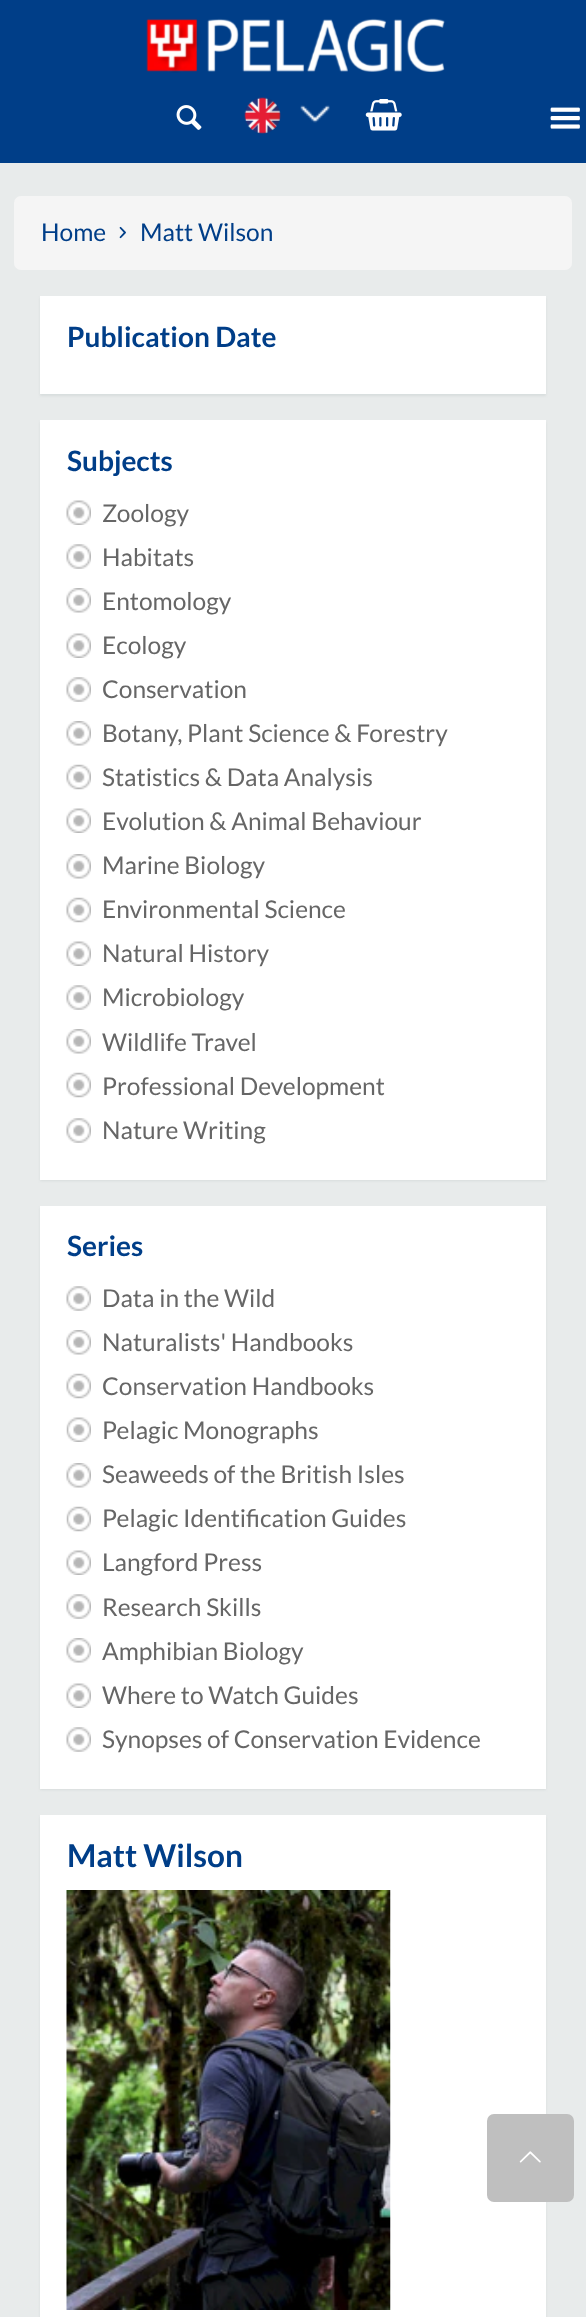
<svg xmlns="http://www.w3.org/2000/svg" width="586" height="2317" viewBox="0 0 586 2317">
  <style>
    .t1 { font: 24.5px Lato; fill: #003e88; }
    .t2 { font: bold 28px Lato; fill: #003e88; }
    .t3 { font: 24.5px Lato; fill: #666; }
    .t4 { font: bold 31.5px Lato; fill: #003e88; }
  </style>
  <rect width="100%" height="100%" fill="#e8ebeb"/>
  <rect x="0" y="0" width="586" height="163" fill="#003e88"/>
  <image x="146" y="18" width="299" height="55" href="images/1.png"/>
  <image x="176" y="105" width="26" height="25" href="images/2.png"/>
  <image x="300" y="105" width="30" height="18" href="images/3.png"/>
  <image x="244" y="97" width="37" height="37" href="images/4.png"/>
  <image x="365" y="99" width="37" height="32" href="images/5.png"/>
  <image x="550" y="107" width="30" height="22" href="images/6.png"/>
  <rect x="14" y="196" width="558" height="74" rx="7" fill="#f5f5f5"/>
  <text x="41" y="241" class="t1">Home</text>
  <image x="119" y="226" width="7" height="13" href="images/7.png"/>
  <text x="140" y="241" class="t1">Matt Wilson</text>
  <rect x="40" y="298" width="506" height="98" fill="#d8dddd" filter="blur(1px)"/>
  <rect x="40" y="296" width="506" height="98" fill="#fff"/>
  <text x="67" y="347" class="t2">Publication Date</text>
  <rect x="40" y="422" width="506" height="759" fill="#d8dddd" filter="blur(1px)"/>
  <rect x="40" y="420" width="506" height="760" fill="#fff"/>
  <text x="67" y="471" class="t2">Subjects</text>
  <image x="66" y="500" width="25" height="25" href="images/8.png"/>
  <text x="102" y="522" class="t3">Zoology</text>
  <image x="66" y="544" width="25" height="25" href="images/9.png"/>
  <text x="102" y="566" class="t3">Habitats</text>
  <image x="66" y="588" width="25" height="25" href="images/10.png"/>
  <text x="102" y="610" class="t3">Entomology</text>
  <image x="66" y="633" width="25" height="25" href="images/8.png"/>
  <text x="102" y="654" class="t3">Ecology</text>
  <image x="66" y="677" width="25" height="25" href="images/9.png"/>
  <text x="102" y="698" class="t3">Conservation</text>
  <image x="66" y="721" width="25" height="25" href="images/10.png"/>
  <text x="102" y="742" class="t3">Botany, Plant Science &amp; Forestry</text>
  <image x="66" y="764" width="25" height="26" href="images/11.png"/>
  <text x="102" y="786" class="t3">Statistics &amp; Data Analysis</text>
  <image x="66" y="808" width="25" height="25" href="images/8.png"/>
  <text x="102" y="830" class="t3">Evolution &amp; Animal Behaviour</text>
  <image x="66" y="854" width="25" height="25" href="images/10.png"/>
  <text x="102" y="874" class="t3">Marine Biology</text>
  <image x="66" y="897" width="25" height="26" href="images/11.png"/>
  <text x="102" y="918" class="t3">Environmental Science</text>
  <image x="66" y="941" width="25" height="25" href="images/8.png"/>
  <text x="102" y="962" class="t3">Natural History</text>
  <image x="66" y="985" width="25" height="25" href="images/9.png"/>
  <text x="102" y="1006" class="t3">Microbiology</text>
  <image x="66" y="1029" width="25" height="25" href="images/10.png"/>
  <text x="102" y="1051" class="t3">Wildlife Travel</text>
  <image x="66" y="1072" width="25" height="26" href="images/11.png"/>
  <text x="102" y="1095" class="t3">Professional Development</text>
  <image x="66" y="1118" width="25" height="25" href="images/9.png"/>
  <text x="102" y="1139" class="t3">Nature Writing</text>
  <rect x="40" y="1208" width="506" height="582" fill="#d8dddd" filter="blur(1px)"/>
  <rect x="40" y="1206" width="506" height="583" fill="#fff"/>
  <text x="67" y="1256" class="t2">Series</text>
  <image x="66" y="1286" width="25" height="25" href="images/9.png"/>
  <text x="102" y="1307" class="t3">Data in the Wild</text>
  <image x="66" y="1330" width="25" height="25" href="images/10.png"/>
  <text x="102" y="1351" class="t3">Naturalists' Handbooks</text>
  <image x="66" y="1373" width="25" height="26" href="images/11.png"/>
  <text x="102" y="1395" class="t3">Conservation Handbooks</text>
  <image x="66" y="1417" width="25" height="25" href="images/12.png"/>
  <text x="102" y="1439" class="t3">Pelagic Monographs</text>
  <image x="66" y="1463" width="25" height="25" href="images/13.png"/>
  <text x="102" y="1483" class="t3">Seaweeds of the British Isles</text>
  <image x="66" y="1506" width="25" height="26" href="images/14.png"/>
  <text x="102" y="1527" class="t3">Pelagic Identification Guides</text>
  <image x="66" y="1550" width="25" height="25" href="images/8.png"/>
  <text x="102" y="1571" class="t3">Langford Press</text>
  <image x="66" y="1594" width="25" height="25" href="images/9.png"/>
  <text x="102" y="1616" class="t3">Research Skills</text>
  <image x="66" y="1638" width="25" height="25" href="images/10.png"/>
  <text x="102" y="1660" class="t3">Amphibian Biology</text>
  <image x="66" y="1683" width="25" height="25" href="images/8.png"/>
  <text x="102" y="1704" class="t3">Where to Watch Guides</text>
  <image x="66" y="1727" width="25" height="25" href="images/9.png"/>
  <text x="102" y="1748" class="t3">Synopses of Conservation Evidence</text>
  <rect x="40" y="1817" width="506" height="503" fill="#d8dddd" filter="blur(1px)"/>
  <rect x="40" y="1815" width="506" height="502" fill="#fff"/>
  <text x="67" y="1867" class="t4">Matt Wilson</text>
  <image x="66" y="1890" width="325" height="420" href="images/15.png"/>
  <rect x="487" y="2114" width="87" height="88" rx="7" fill="#bfbfbf"/>
  <image x="519" y="2151" width="22" height="12" href="images/16.png"/>
</svg>
